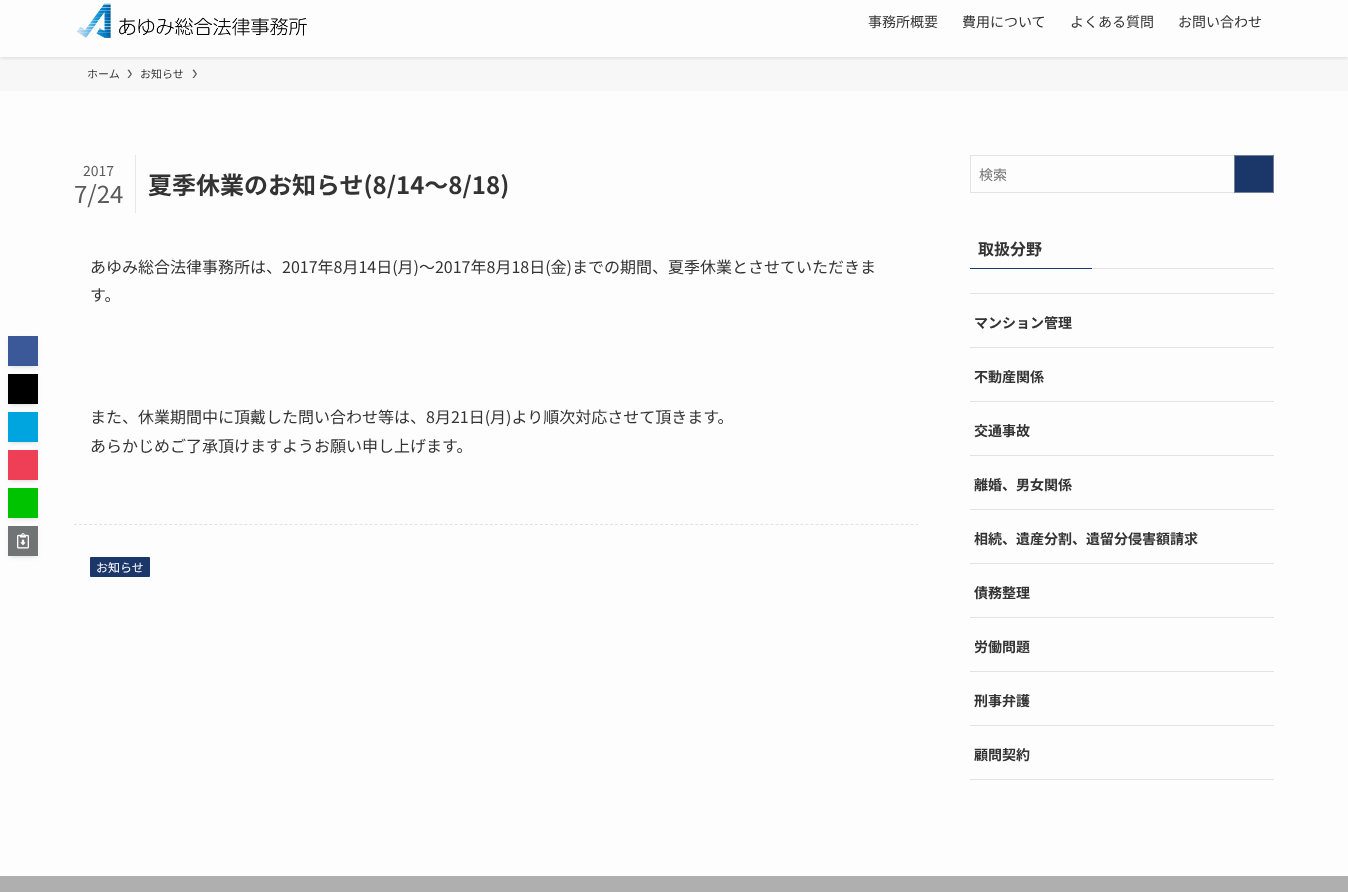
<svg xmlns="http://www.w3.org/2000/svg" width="1348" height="892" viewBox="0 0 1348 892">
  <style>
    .t1 { font: 14px Noto Sans JP; fill: #333; }
    .t2 { font: 11px Noto Sans JP; fill: #333; }
    .t3 { font: 14px Noto Sans JP; fill: #5b5b5b; }
    .t4 { font: 24px Noto Sans JP; fill: #5b5b5b; }
    .t5 { font: bold 24px Noto Sans JP; fill: #333; }
    .t6 { font: 16px Noto Sans JP; fill: #333; }
    .t7 { font: 12px Noto Sans JP; fill: #fff; }
    .t8 { font: 14px Noto Sans JP; fill: #757575; }
    .t9 { font: bold 16px Noto Sans JP; fill: #333; }
    .t10 { font: bold 14px Noto Sans JP; fill: #333; }
  </style>
  <defs>
    <clipPath id="clip1"><rect x="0" y="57" width="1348" height="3"/></clipPath>
  </defs>
  <rect width="100%" height="100%" fill="#fdfdfd"/>
  <rect x="0" y="57" width="1348" height="34" fill="#f7f7f7"/>
  <g clip-path="url(#clip1)">
    <rect x="0" y="-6" width="1348" height="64" fill="#0000001f" filter="blur(2px)"/>
  </g>
  <image x="76" y="3" width="231" height="35" href="images/1.png"/>
  <text x="868" y="27" class="t1">事務所概要</text>
  <text x="962" y="27" class="t1">費用について</text>
  <text x="1070" y="27" class="t1">よくある質問</text>
  <text x="1178" y="27" class="t1">お問い合わせ</text>
  <text x="87" y="78" class="t2">ホーム</text>
  <path d="M129 69.5L127.5 70L130.5 74L127.5 78H129L132 74Z" fill="#5a5a5a"/>
  <text x="140" y="78" class="t2">お知らせ</text>
  <path d="M194 69.5L192.5 70L195.5 74L192.5 78H194L197 74Z" fill="#5a5a5a"/>
  <rect x="135" y="155" width="1" height="58" fill="#e8e8e8"/>
  <text x="83" y="176" class="t3">2017</text>
  <text x="74" y="203" class="t4">7/24</text>
  <text x="148" y="194" class="t5">夏季休業のお知らせ(8/14～8/18)</text>
  <rect x="12" y="344" width="22" height="22" fill="#0000001a" filter="blur(2px)"/>
  <rect x="8" y="338" width="30" height="30" fill="#0000000d" filter="blur(2px)"/>
  <rect x="8" y="336" width="30" height="30" fill="#3b5998"/>
  <rect x="12" y="382" width="22" height="22" fill="#0000001a" filter="blur(2px)"/>
  <rect x="8" y="376" width="30" height="30" fill="#0000000d" filter="blur(2px)"/>
  <rect x="8" y="374" width="30" height="30" fill="#000"/>
  <rect x="12" y="420" width="22" height="22" fill="#0000001a" filter="blur(2px)"/>
  <rect x="8" y="414" width="30" height="30" fill="#0000000d" filter="blur(2px)"/>
  <rect x="8" y="412" width="30" height="30" fill="#00a4de"/>
  <rect x="12" y="458" width="22" height="22" fill="#0000001a" filter="blur(2px)"/>
  <rect x="8" y="452" width="30" height="30" fill="#0000000d" filter="blur(2px)"/>
  <rect x="8" y="450" width="30" height="30" fill="#ef3f56"/>
  <rect x="12" y="496" width="22" height="22" fill="#0000001a" filter="blur(2px)"/>
  <rect x="8" y="490" width="30" height="30" fill="#0000000d" filter="blur(2px)"/>
  <rect x="8" y="488" width="30" height="30" fill="#00c300"/>
  <rect x="12" y="534" width="22" height="22" fill="#0000001a" filter="blur(2px)"/>
  <rect x="8" y="528" width="30" height="30" fill="#0000000d" filter="blur(2px)"/>
  <rect x="8" y="526" width="30" height="30" fill="#717475"/>
  <image x="17" y="533" width="12" height="16" href="images/2.png"/>
  <text x="90" y="273" class="t6">あゆみ総合法律事務所は、2017年8月14日(月)～2017年8月18日(金)までの期間、夏季休業とさせていただきま</text>
  <text x="90" y="301" class="t6">す。</text>
  <text x="90" y="423" class="t6">また、休業期間中に頂戴した問い合わせ等は、8月21日(月)より順次対応させて頂きます。</text>
  <text x="90" y="452" class="t6">あらかじめご了承頂けますようお願い申し上げます。</text>
  <path d="M74 524.5H918" fill="none" stroke="#e2e2e2" stroke-dasharray="3 2.01"/>
  <rect x="90" y="557" width="60" height="20" rx="1" fill="#1b3668"/>
  <text x="96" y="572" class="t7">お知らせ</text>
  <rect x="970.5" y="155.5" width="303" height="37" fill="none" stroke="#e3e3e3"/>
  <text x="979" y="180" class="t8">検索</text>
  <rect x="1234.5" y="155.5" width="39" height="37" fill="#1b3668" stroke="#717f98"/>
  <text x="978" y="255" class="t9">取扱分野</text>
  <rect x="970" y="268" width="122" height="1" fill="#1b3668"/>
  <rect x="1092" y="268" width="182" height="1" fill="#e2e2e2"/>
  <rect x="970" y="293" width="304" height="1" fill="#e2e2e2"/>
  <rect x="970" y="347" width="304" height="1" fill="#e2e2e2"/>
  <text x="974" y="328" class="t10">マンション管理</text>
  <rect x="970" y="401" width="304" height="1" fill="#e2e2e2"/>
  <text x="974" y="382" class="t10">不動産関係</text>
  <rect x="970" y="455" width="304" height="1" fill="#e2e2e2"/>
  <text x="974" y="436" class="t10">交通事故</text>
  <rect x="970" y="509" width="304" height="1" fill="#e2e2e2"/>
  <text x="974" y="490" class="t10">離婚、男女関係</text>
  <rect x="970" y="563" width="304" height="1" fill="#e2e2e2"/>
  <text x="974" y="544" class="t10">相続、遺産分割、遺留分侵害額請求</text>
  <rect x="970" y="617" width="304" height="1" fill="#e2e2e2"/>
  <text x="974" y="598" class="t10">債務整理</text>
  <rect x="970" y="671" width="304" height="1" fill="#e2e2e2"/>
  <text x="974" y="652" class="t10">労働問題</text>
  <rect x="970" y="725" width="304" height="1" fill="#e2e2e2"/>
  <text x="974" y="706" class="t10">刑事弁護</text>
  <rect x="970" y="779" width="304" height="1" fill="#e2e2e2"/>
  <text x="974" y="760" class="t10">顧問契約</text>
  <rect x="0" y="876" width="1348" height="16" fill="#afafaf"/>
</svg>
